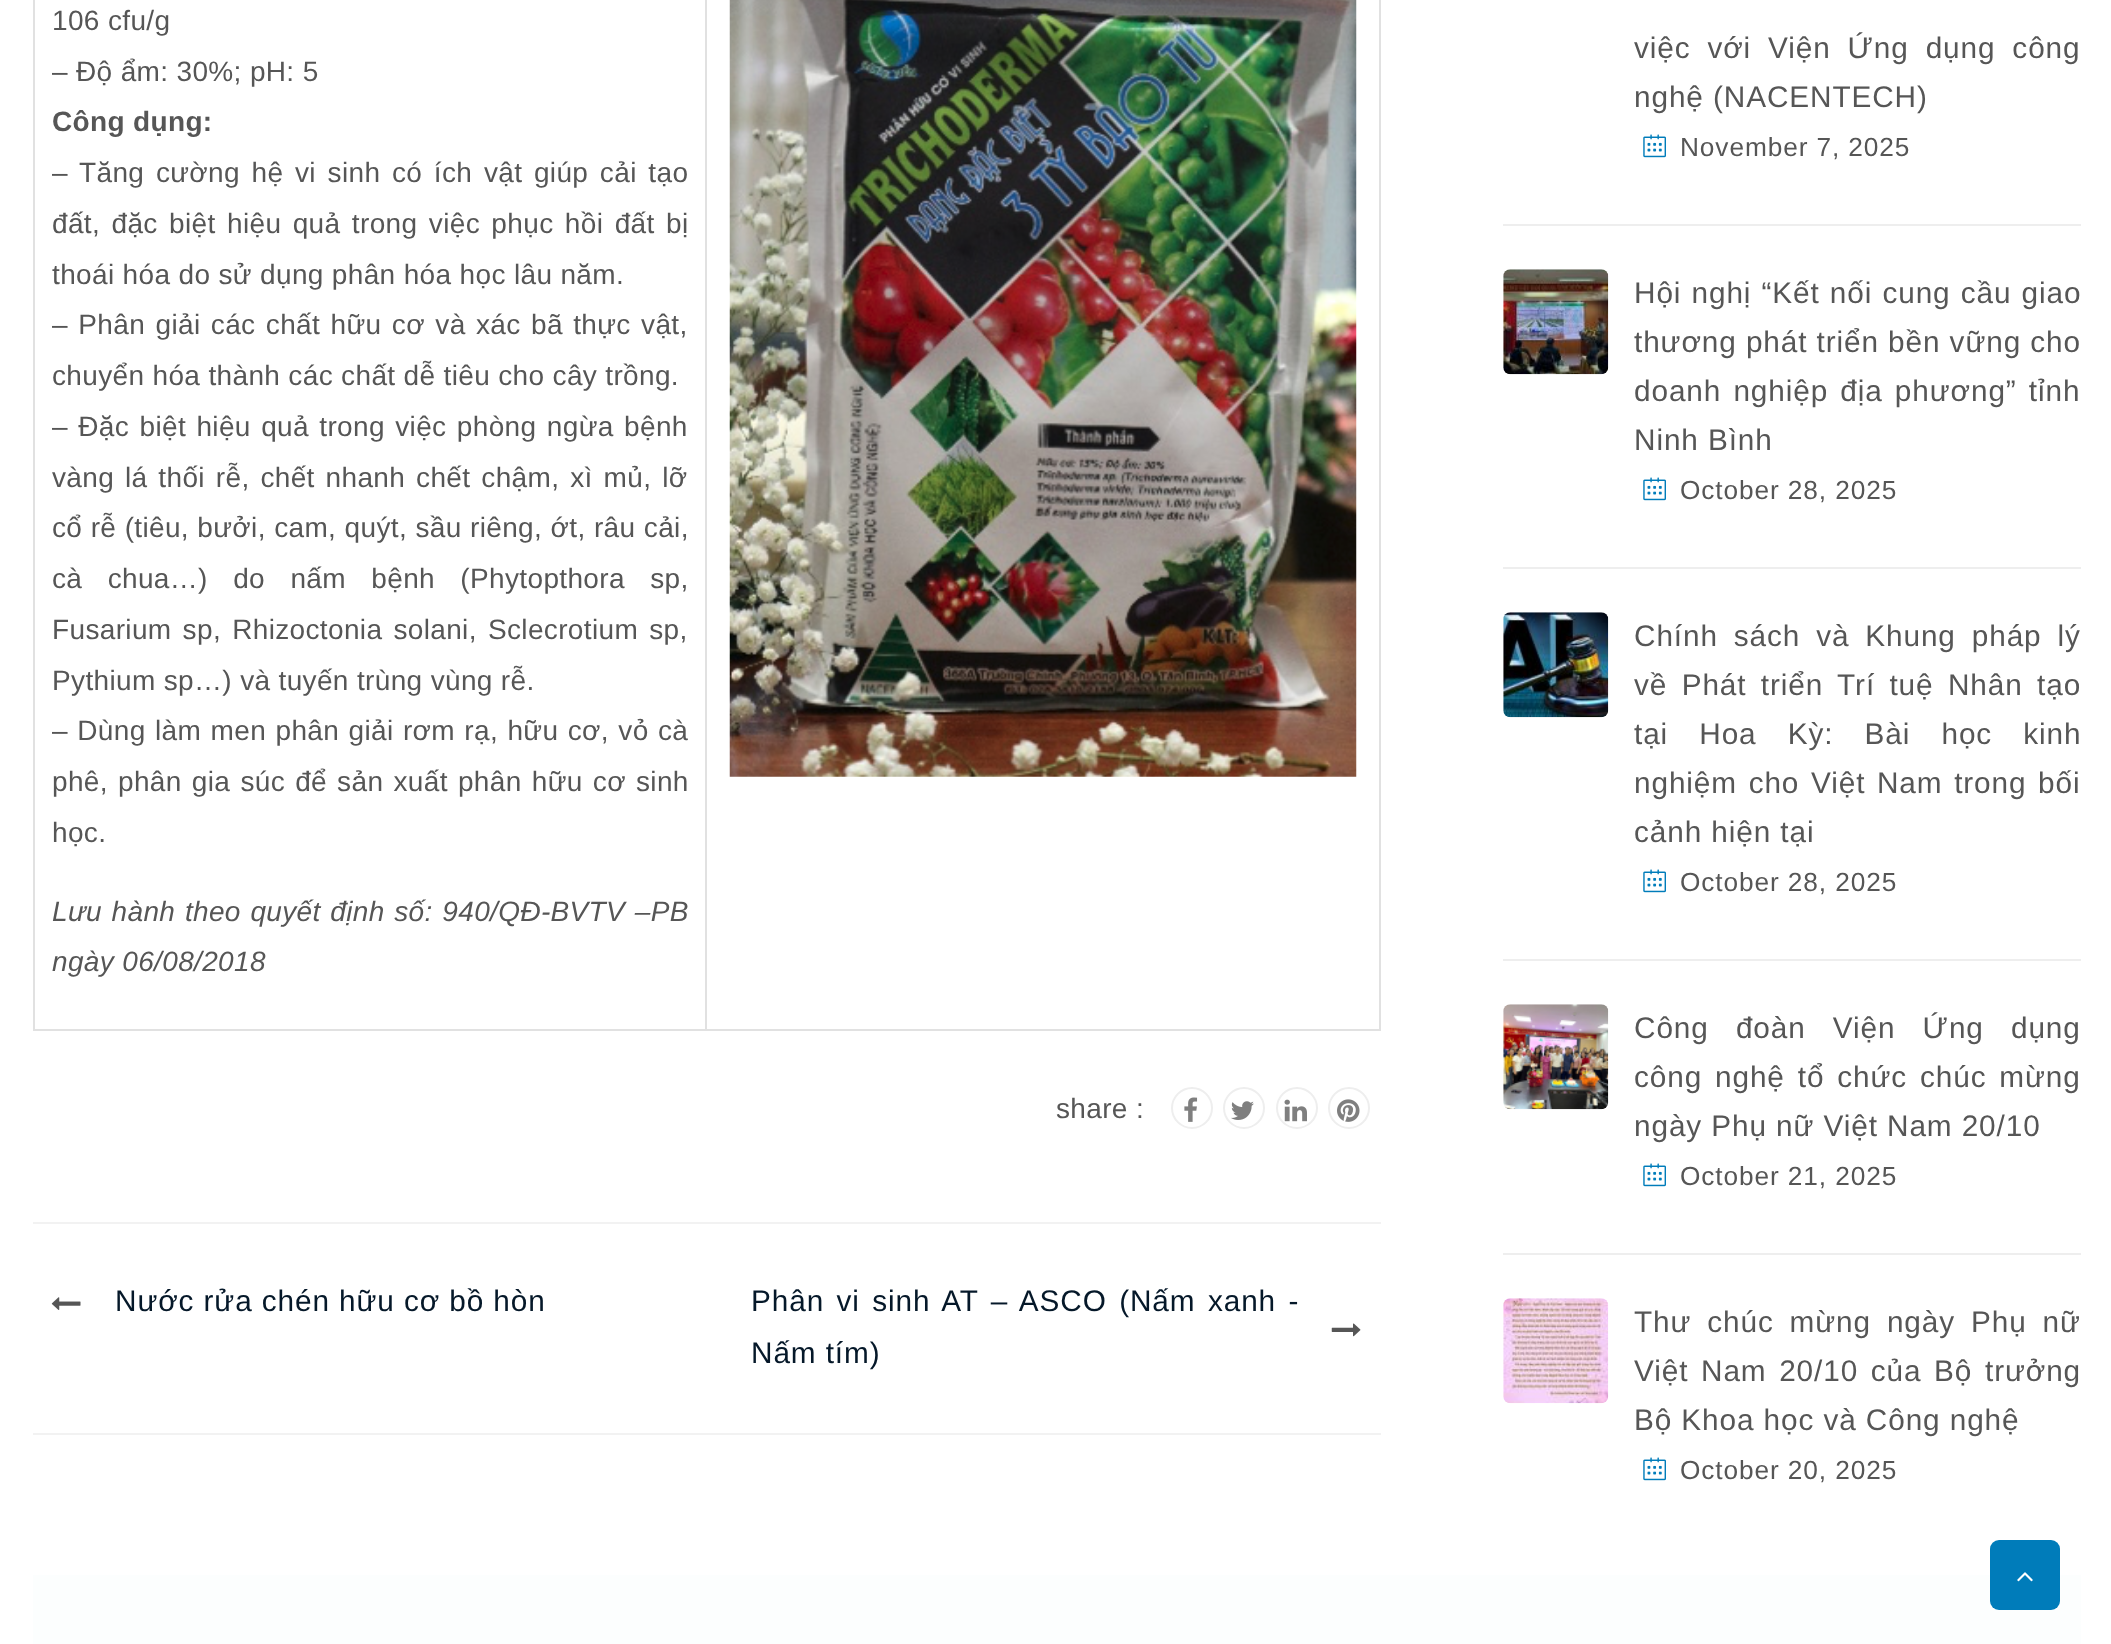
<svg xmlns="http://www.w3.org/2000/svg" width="2111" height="1644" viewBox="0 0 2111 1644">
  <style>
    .t1 { font: 28px Liberation Sans; letter-spacing: 0.35px; fill: #565656; }
    .t2 { font: bold 28px Liberation Sans; letter-spacing: 0.35px; fill: #565656; }
    .t3 { font: italic 28px Liberation Sans; letter-spacing: 0.35px; fill: #565656; }
    .t4 { font: 29.75px Liberation Sans; letter-spacing: 0.9px; fill: #051829; }
    .t5 { font: 29.75px Liberation Sans; letter-spacing: 0.9px; fill: #565656; }
    .t6 { font: 26.25px Liberation Sans; letter-spacing: 0.9px; fill: #565656; }
  </style>
  <rect width="100%" height="100%" fill="#fff"/>
  <rect x="1379" y="0" width="2" height="1031" fill="#e1e1e1"/>
  <rect x="705" y="1029" width="676" height="2" fill="#e1e1e1"/>
  <rect x="705" y="0" width="2" height="1031" fill="#e1e1e1"/>
  <rect x="33" y="1029" width="674" height="2" fill="#e1e1e1"/>
  <rect x="33" y="0" width="2" height="1031" fill="#e1e1e1"/>
  <text x="52" y="30" class="t1">106 cfu/g</text>
  <text x="52" y="81" class="t1">– Độ ẩm: 30%; pH: 5</text>
  <text x="52" y="131" class="t2">Công dụng:</text>
  <text x="52" y="182" word-spacing="3.5" class="t1">– Tăng cường hệ vi sinh có ích vật giúp cải tạo</text>
  <text x="52" y="233" word-spacing="3.25" class="t1">đất, đặc biệt hiệu quả trong việc phục hồi đất bị</text>
  <text x="52" y="284" class="t1">thoái hóa do sử dụng phân hóa học lâu năm.</text>
  <text x="52" y="334" word-spacing="2.25" class="t1">– Phân giải các chất hữu cơ và xác bã thực vật,</text>
  <text x="52" y="385" class="t1">chuyển hóa thành các chất dễ tiêu cho cây trồng.</text>
  <text x="52" y="436" word-spacing="2.25" class="t1">– Đặc biệt hiệu quả trong việc phòng ngừa bệnh</text>
  <text x="52" y="487" word-spacing="2.75" class="t1">vàng lá thối rễ, chết nhanh chết chậm, xì mủ, lỡ</text>
  <text x="52" y="537" word-spacing="0.25" class="t1">cổ rễ (tiêu, bưởi, cam, quýt, sầu riêng, ớt, râu cải,</text>
  <text x="52" y="588" word-spacing="17.25" class="t1">cà chua…) do nấm bệnh (Phytopthora sp,</text>
  <text x="52" y="639" word-spacing="3" class="t1">Fusarium sp, Rhizoctonia solani, Sclecrotium sp,</text>
  <text x="52" y="690" class="t1">Pythium sp…) và tuyến trùng vùng rễ.</text>
  <text x="52" y="740" word-spacing="1.25" class="t1">– Dùng làm men phân giải rơm rạ, hữu cơ, vỏ cà</text>
  <text x="52" y="791" word-spacing="2" class="t1">phê, phân gia súc để sản xuất phân hữu cơ sinh</text>
  <text x="52" y="842" class="t1">học.</text>
  <text x="52" y="921" word-spacing="1.5" class="t3">Lưu hành theo quyết định số: 940/QĐ-BVTV –PB</text>
  <text x="52" y="971" class="t3">ngày 06/08/2018</text>
  <image x="729" y="0" width="628" height="777" href="images/1.png"/>
  <text x="1056" y="1118" class="t1">share :</text>
  <circle cx="1192" cy="1108" r="20" fill="none" stroke="#eee" stroke-width="2"/>
  <image x="1184" y="1097" width="14" height="25" href="images/2.png"/>
  <circle cx="1244" cy="1108" r="20" fill="none" stroke="#eee" stroke-width="2"/>
  <image x="1231" y="1101" width="23" height="19" href="images/3.png"/>
  <circle cx="1297" cy="1108" r="20" fill="none" stroke="#eee" stroke-width="2"/>
  <image x="1284" y="1099" width="23" height="23" href="images/4.png"/>
  <circle cx="1349" cy="1108" r="20" fill="none" stroke="#eee" stroke-width="2"/>
  <image x="1337" y="1099" width="23" height="23" href="images/5.png"/>
  <rect x="33" y="1222" width="1348" height="2" fill="#f2f2f2"/>
  <rect x="33" y="1433" width="1348" height="2" fill="#f2f2f2"/>
  <image x="51" y="1297" width="30" height="13" href="images/6.png"/>
  <text x="115" y="1311" class="t4">Nước rửa chén hữu cơ bồ hòn</text>
  <text x="751" y="1311" word-spacing="3.25" class="t4">Phân vi sinh AT – ASCO (Nấm xanh -</text>
  <text x="751" y="1363" class="t4">Nấm tím)</text>
  <image x="1331" y="1323" width="30" height="14" href="images/7.png"/>
  <rect x="1503" y="224" width="578" height="2" fill="#eee"/>
  <text x="1634" y="58" word-spacing="7.75" class="t5">việc với Viện Ứng dụng công</text>
  <text x="1634" y="107" class="t5">nghệ (NACENTECH)</text>
  <image x="1643" y="134" width="23" height="24" href="images/8.png"/>
  <text x="1680" y="156" class="t6">November 7, 2025</text>
  <rect x="1503" y="567" width="578" height="2" fill="#eee"/>
  <image x="1503" y="269" width="106" height="106" href="images/9.png"/>
  <text x="1634" y="303" word-spacing="1" class="t5">Hội nghị “Kết nối cung cầu giao</text>
  <text x="1634" y="352" class="t5">thương phát triển bền vững cho</text>
  <text x="1634" y="401" word-spacing="3" class="t5">doanh nghiệp địa phương” tỉnh</text>
  <text x="1634" y="450" class="t5">Ninh Bình</text>
  <image x="1643" y="477" width="23" height="24" href="images/8.png"/>
  <text x="1680" y="499" class="t6">October 28, 2025</text>
  <rect x="1503" y="959" width="578" height="2" fill="#eee"/>
  <image x="1503" y="612" width="106" height="106" href="images/10.png"/>
  <text x="1634" y="646" word-spacing="6.75" class="t5">Chính sách và Khung pháp lý</text>
  <text x="1634" y="695" word-spacing="5.25" class="t5">về Phát triển Trí tuệ Nhân tạo</text>
  <text x="1634" y="744" word-spacing="22" class="t5">tại Hoa Kỳ: Bài học kinh</text>
  <text x="1634" y="793" word-spacing="2.5" class="t5">nghiệm cho Việt Nam trong bối</text>
  <text x="1634" y="842" class="t5">cảnh hiện tại</text>
  <image x="1643" y="869" width="23" height="24" href="images/8.png"/>
  <text x="1680" y="891" class="t6">October 28, 2025</text>
  <rect x="1503" y="1253" width="578" height="2" fill="#eee"/>
  <image x="1503" y="1004" width="106" height="106" href="images/11.png"/>
  <text x="1634" y="1038" word-spacing="18" class="t5">Công đoàn Viện Ứng dụng</text>
  <text x="1634" y="1087" word-spacing="3.75" class="t5">công nghệ tổ chức chúc mừng</text>
  <text x="1634" y="1136" class="t5">ngày Phụ nữ Việt Nam 20/10</text>
  <image x="1643" y="1163" width="23" height="24" href="images/8.png"/>
  <text x="1680" y="1185" class="t6">October 21, 2025</text>
  <image x="1503" y="1298" width="106" height="106" href="images/12.png"/>
  <text x="1634" y="1332" word-spacing="6.75" class="t5">Thư chúc mừng ngày Phụ nữ</text>
  <text x="1634" y="1381" word-spacing="3.5" class="t5">Việt Nam 20/10 của Bộ trưởng</text>
  <text x="1634" y="1430" class="t5">Bộ Khoa học và Công nghệ</text>
  <image x="1643" y="1457" width="23" height="24" href="images/8.png"/>
  <text x="1680" y="1479" class="t6">October 20, 2025</text>
  <rect x="33" y="1575" width="2048" height="69" fill="#fcfefe"/>
  <rect x="1990" y="1540" width="70" height="70" rx="9" fill="#007cba"/>
  <image x="2017" y="1572" width="16" height="10" href="images/13.png"/>
</svg>
